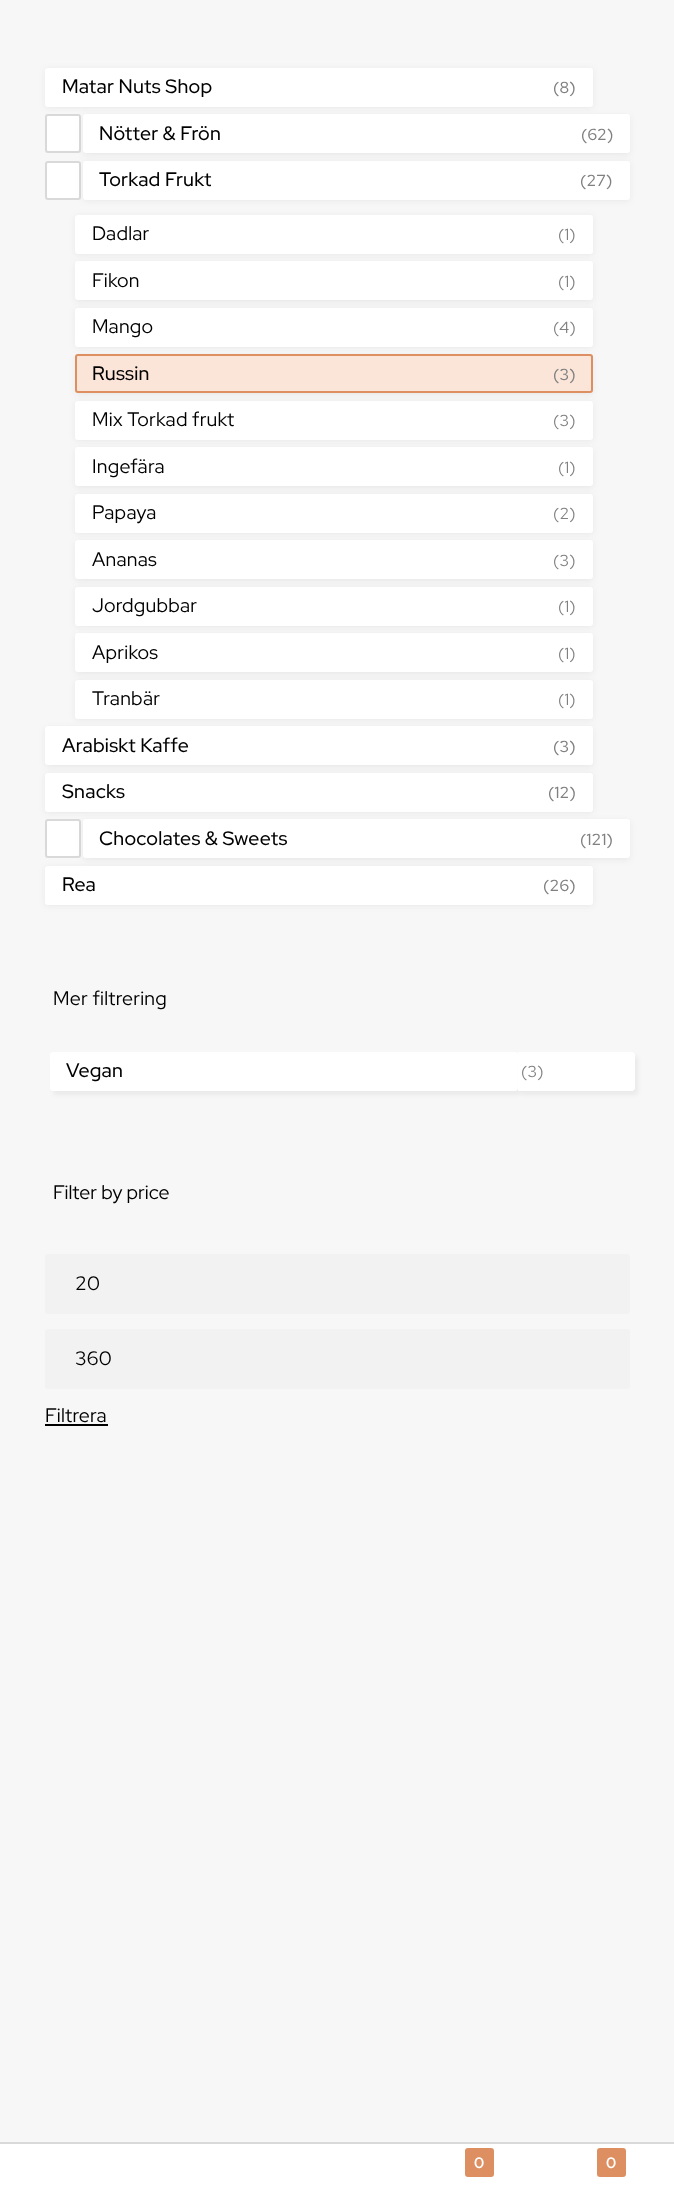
<svg xmlns="http://www.w3.org/2000/svg" width="674" height="2210" viewBox="0 0 674 2210">
  <style>
    .t1 { font: 500 19.5px Red Hat Display; letter-spacing: 0.25px; fill: #000; }
    .t2 { font: 500 16px Red Hat Display; letter-spacing: 0.25px; fill: #808080; }
    .t3 { font: 19.5px Red Hat Display; letter-spacing: 0.25px; fill: #000; }
    .t4 { font: 16px Red Hat Display; letter-spacing: 0.25px; fill: #808080; }
    .t5 { font: 19.5px Red Hat Display; fill: #000; }
    .t6 { font: bold 15px Red Hat Display; letter-spacing: 0.25px; fill: #fff; }
  </style>
  <rect width="100%" height="100%" fill="#f7f7f7"/>
  <rect x="45" y="69" width="548" height="39" rx="3" fill="#6a6a6a1a" filter="blur(3px)"/>
  <rect x="45" y="68" width="548" height="39" rx="3" fill="#fff"/>
  <text x="62" y="93" class="t1">Matar Nuts Shop</text>
  <text x="553" y="93" class="t2">(8)</text>
  <rect x="46" y="115" width="34" height="37" rx="2" fill="#fff" stroke="#d9d9d9" stroke-width="2"/>
  <rect x="83" y="116" width="547" height="39" rx="3" fill="#6a6a6a1a" filter="blur(3px)"/>
  <rect x="83" y="114" width="547" height="39" rx="3" fill="#fff"/>
  <text x="99" y="140" class="t1">Nötter &amp; Frön</text>
  <text x="581" y="140" class="t2">(62)</text>
  <rect x="46" y="162" width="34" height="37" rx="2" fill="#fff" stroke="#d9d9d9" stroke-width="2"/>
  <rect x="83" y="162" width="547" height="39" rx="3" fill="#6a6a6a1a" filter="blur(3px)"/>
  <rect x="83" y="161" width="547" height="39" rx="3" fill="#fff"/>
  <text x="99" y="186" class="t1">Torkad Frukt</text>
  <text x="580" y="186" class="t2">(27)</text>
  <rect x="75" y="216" width="518" height="39" rx="3" fill="#6a6a6a1a" filter="blur(3px)"/>
  <rect x="75" y="215" width="518" height="39" rx="3" fill="#fff"/>
  <text x="92" y="240" class="t3">Dadlar</text>
  <text x="558" y="240" class="t4">(1)</text>
  <rect x="75" y="263" width="518" height="39" rx="3" fill="#6a6a6a1a" filter="blur(3px)"/>
  <rect x="75" y="261" width="518" height="39" rx="3" fill="#fff"/>
  <text x="92" y="287" class="t3">Fikon</text>
  <text x="558" y="287" class="t4">(1)</text>
  <rect x="75" y="309" width="518" height="39" rx="3" fill="#6a6a6a1a" filter="blur(3px)"/>
  <rect x="75" y="308" width="518" height="39" rx="3" fill="#fff"/>
  <text x="92" y="333" class="t3">Mango</text>
  <text x="553" y="333" class="t4">(4)</text>
  <rect x="75" y="356" width="518" height="39" rx="3" fill="#6a6a6a1a" filter="blur(3px)"/>
  <rect x="76" y="355" width="516" height="37" rx="2" fill="#fbe5d8" stroke="#dd8f62" stroke-width="2"/>
  <text x="92" y="380" class="t1">Russin</text>
  <text x="553" y="380" class="t2">(3)</text>
  <rect x="75" y="402" width="518" height="39" rx="3" fill="#6a6a6a1a" filter="blur(3px)"/>
  <rect x="75" y="401" width="518" height="39" rx="3" fill="#fff"/>
  <text x="92" y="426" class="t3">Mix Torkad frukt</text>
  <text x="553" y="426" class="t4">(3)</text>
  <rect x="75" y="449" width="518" height="39" rx="3" fill="#6a6a6a1a" filter="blur(3px)"/>
  <rect x="75" y="447" width="518" height="39" rx="3" fill="#fff"/>
  <text x="92" y="473" class="t3">Ingefära</text>
  <text x="558" y="473" class="t4">(1)</text>
  <rect x="75" y="495" width="518" height="39" rx="3" fill="#6a6a6a1a" filter="blur(3px)"/>
  <rect x="75" y="494" width="518" height="39" rx="3" fill="#fff"/>
  <text x="92" y="519" class="t3">Papaya</text>
  <text x="553" y="519" class="t4">(2)</text>
  <rect x="75" y="542" width="518" height="39" rx="3" fill="#6a6a6a1a" filter="blur(3px)"/>
  <rect x="75" y="540" width="518" height="39" rx="3" fill="#fff"/>
  <text x="92" y="566" class="t3">Ananas</text>
  <text x="553" y="566" class="t4">(3)</text>
  <rect x="75" y="588" width="518" height="39" rx="3" fill="#6a6a6a1a" filter="blur(3px)"/>
  <rect x="75" y="587" width="518" height="39" rx="3" fill="#fff"/>
  <text x="92" y="612" class="t3">Jordgubbar</text>
  <text x="558" y="612" class="t4">(1)</text>
  <rect x="75" y="635" width="518" height="39" rx="3" fill="#6a6a6a1a" filter="blur(3px)"/>
  <rect x="75" y="633" width="518" height="39" rx="3" fill="#fff"/>
  <text x="92" y="659" class="t3">Aprikos</text>
  <text x="558" y="659" class="t4">(1)</text>
  <rect x="75" y="681" width="518" height="39" rx="3" fill="#6a6a6a1a" filter="blur(3px)"/>
  <rect x="75" y="680" width="518" height="39" rx="3" fill="#fff"/>
  <text x="92" y="705" class="t3">Tranbär</text>
  <text x="558" y="705" class="t4">(1)</text>
  <rect x="45" y="728" width="548" height="39" rx="3" fill="#6a6a6a1a" filter="blur(3px)"/>
  <rect x="45" y="726" width="548" height="39" rx="3" fill="#fff"/>
  <text x="62" y="752" class="t1">Arabiskt Kaffe</text>
  <text x="553" y="752" class="t2">(3)</text>
  <rect x="45" y="774" width="548" height="39" rx="3" fill="#6a6a6a1a" filter="blur(3px)"/>
  <rect x="45" y="773" width="548" height="39" rx="3" fill="#fff"/>
  <text x="62" y="798" class="t1">Snacks</text>
  <text x="548" y="798" class="t2">(12)</text>
  <rect x="46" y="820" width="34" height="37" rx="2" fill="#fff" stroke="#d9d9d9" stroke-width="2"/>
  <rect x="83" y="821" width="547" height="39" rx="3" fill="#6a6a6a1a" filter="blur(3px)"/>
  <rect x="83" y="819" width="547" height="39" rx="3" fill="#fff"/>
  <text x="99" y="845" class="t1">Chocolates &amp; Sweets</text>
  <text x="580" y="845" class="t2">(121)</text>
  <rect x="45" y="867" width="548" height="39" rx="3" fill="#6a6a6a1a" filter="blur(3px)"/>
  <rect x="45" y="866" width="548" height="39" rx="3" fill="#fff"/>
  <text x="62" y="891" class="t1">Rea</text>
  <text x="543" y="891" class="t2">(26)</text>
  <text x="53" y="1005" class="t3">Mer filtrering</text>
  <rect x="53" y="1056" width="468" height="39" rx="3" fill="#0000000d" filter="blur(2px)"/>
  <rect x="50" y="1052" width="468" height="39" rx="3" fill="#fff"/>
  <text x="66" y="1077" class="t1">Vegan</text>
  <rect x="521" y="1056" width="117" height="39" rx="3" fill="#0000000d" filter="blur(2px)"/>
  <path d="M518 1052H632C633.5 1052 635 1053.5 635 1055V1088C635 1089.5 633.5 1091 632 1091H518Z" fill="#fff"/>
  <text x="521" y="1077" class="t4">(3)</text>
  <text x="53" y="1199" class="t5">Filter by price</text>
  <rect x="45" y="1254" width="585" height="60" rx="3" fill="#f2f2f2"/>
  <text x="75" y="1290" class="t3">20</text>
  <rect x="45" y="1329" width="585" height="60" rx="3" fill="#f2f2f2"/>
  <text x="75" y="1365" class="t3">360</text>
  <text x="45" y="1422" class="t3">Filtrera</text>
  <rect x="45" y="1424" width="63" height="2" fill="#000"/>
  <rect x="0" y="2144" width="674" height="66" fill="#fff"/>
  <rect x="0" y="2142" width="674" height="2" fill="#d9d9d9"/>
  <rect x="465" y="2148" width="29" height="29" rx="3" fill="#dd8f62"/>
  <text x="474" y="2168" class="t6">0</text>
  <rect x="597" y="2148" width="29" height="29" rx="3" fill="#dd8f62"/>
  <text x="606" y="2168" class="t6">0</text>
</svg>
